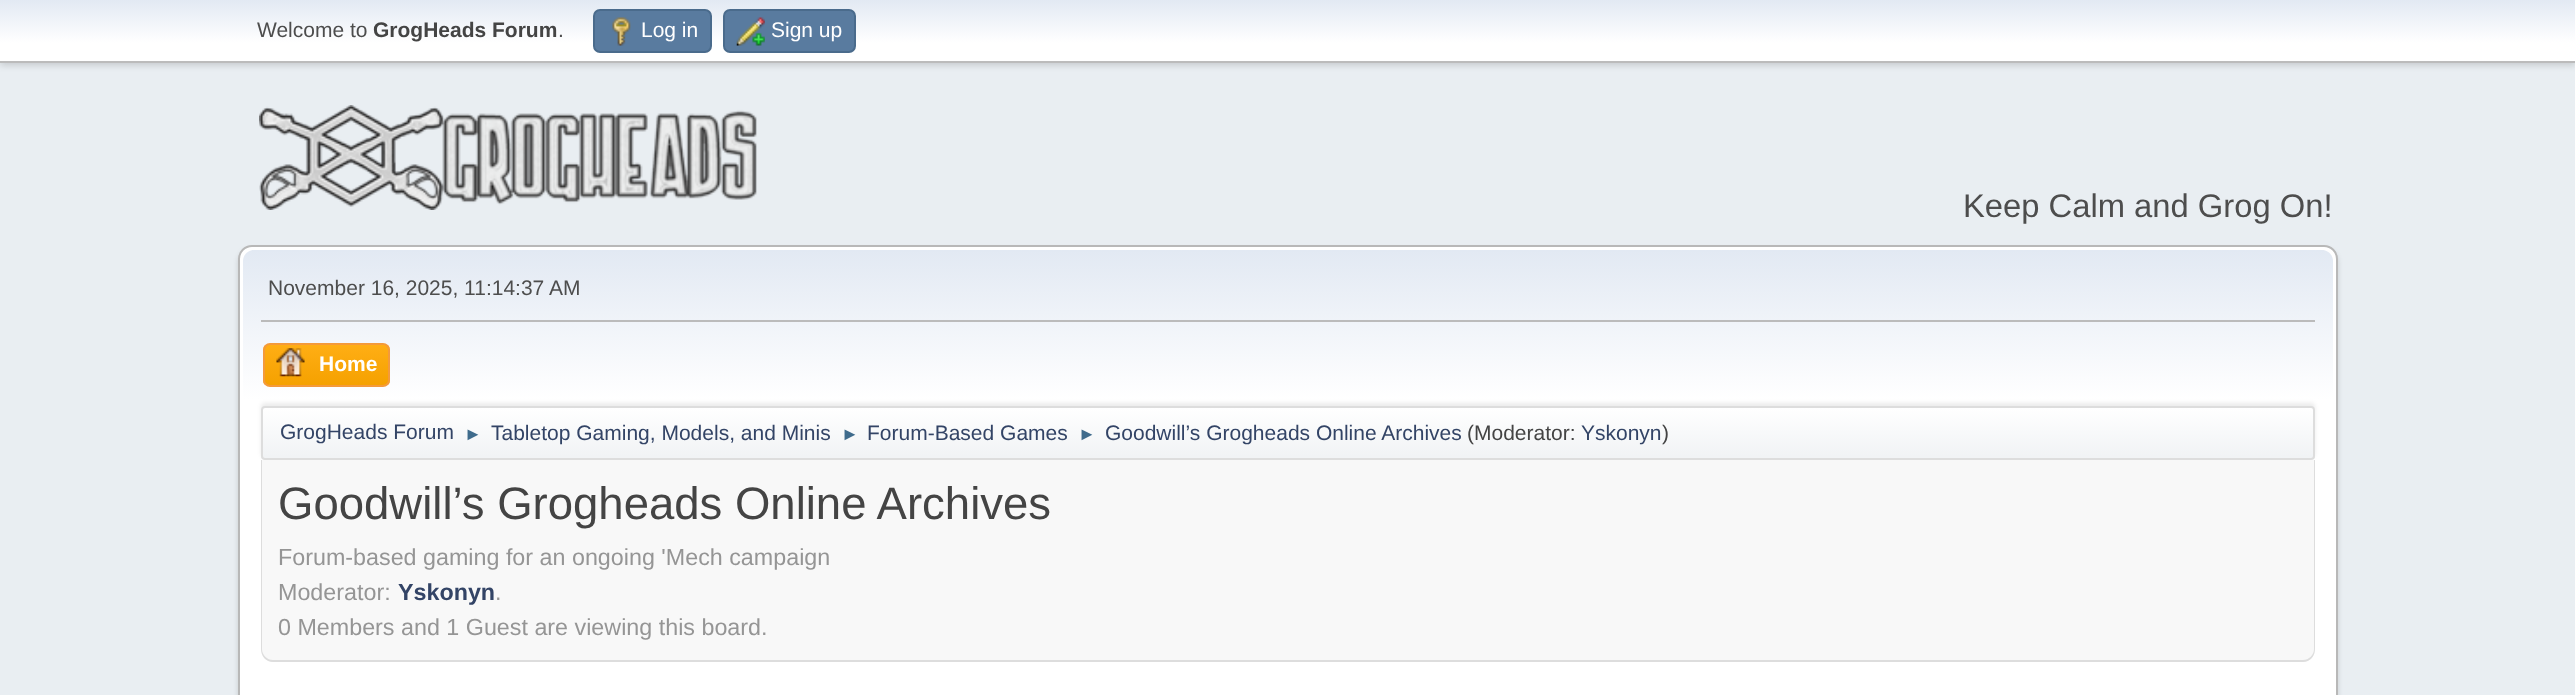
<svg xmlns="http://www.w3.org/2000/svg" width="2575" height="695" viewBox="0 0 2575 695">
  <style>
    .t1 { font: 21px Liberation Sans; fill: #4d4d4d; }
    .t2 { font: bold 21px Liberation Sans; fill: #444; }
    .t3 { font: 21px Liberation Sans; fill: #fff; }
    .t4 { font: 32.75px Liberation Sans; fill: #4d4d4d; }
    .t5 { font: bold 21px Liberation Sans; fill: #fff; }
    .t6 { font: 21px Liberation Sans; fill: #346; }
    .t7 { font: 18px Liberation Sans; fill: #3f6b8c; }
    .t8 { font: 21px Liberation Sans; fill: #444; }
    .t9 { font: 45.5px Liberation Sans; fill: #444; }
    .t10 { font: 23.3px Liberation Sans; fill: #959595; }
    .t11 { font: bold 23.3px Liberation Sans; fill: #346; }
  </style>
  <defs>
    <linearGradient id="g1" gradientUnits="userSpaceOnUse" x1="1288" y1="0" x2="1288" y2="61"><stop offset="0" stop-color="#e2e9f3"/><stop offset="0.7" stop-color="#fff"/></linearGradient>
    <linearGradient id="g2" gradientUnits="userSpaceOnUse" x1="1288" y1="250" x2="1288" y2="464"><stop offset="0" stop-color="#e2e9f3"/><stop offset="0.7" stop-color="#fff"/></linearGradient>
    <clipPath id="clip1"><rect x="263" y="343" width="127" height="44" rx="7"/></clipPath>
    <linearGradient id="g3" gradientUnits="userSpaceOnUse" x1="326" y1="345" x2="326" y2="385"><stop offset="0" stop-color="#ffae14"/><stop offset="1" stop-color="#f5a100"/></linearGradient>
    <clipPath id="clip2"><rect x="261" y="406" width="2054" height="54" rx="4"/></clipPath>
    <linearGradient id="g4" gradientUnits="userSpaceOnUse" x1="1288" y1="408" x2="1288" y2="459"><stop offset="0" stop-color="#fff"/><stop offset="0.95" stop-color="#f1f3f5"/></linearGradient>
  </defs>
  <rect width="100%" height="100%" fill="#e9eef2"/>
  <rect x="0" y="2" width="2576" height="63" fill="#00000029" filter="blur(3.5px)"/>
  <rect x="0" y="0" width="2575" height="61" fill="url(#g1)"/>
  <rect x="0" y="61" width="2575" height="2" fill="#bbb"/>
  <text x="257" y="37" class="t1">Welcome to</text>
  <text x="373" y="37" class="t2">GrogHeads Forum</text>
  <text x="558" y="37" class="t1">.</text>
  <rect x="594" y="10" width="117" height="42" rx="6" fill="#597b9f" stroke="#4a6b8c" stroke-width="2"/>
  <image x="612" y="17" width="19" height="29" href="images/1.png"/>
  <text x="641" y="37" class="t3">Log in</text>
  <rect x="724" y="10" width="131" height="42" rx="6" fill="#597b9f" stroke="#4a6b8c" stroke-width="2"/>
  <image x="736" y="17" width="29" height="29" href="images/2.png"/>
  <text x="771" y="37" class="t3">Sign up</text>
  <image x="259" y="105" width="498" height="105" href="images/3.png"/>
  <text x="1963" y="217" class="t4">Keep Calm and Grog On!</text>
  <rect x="238" y="249" width="2100" height="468" rx="14" fill="#00000024" filter="blur(2.5px)"/>
  <rect x="239" y="246" width="2098" height="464" rx="13" fill="#fff" stroke="#b8b8b8" stroke-width="2"/>
  <path d="M254 250H2322C2328 250 2333 255 2333 261V464H243V261C243 255 248 250 254 250Z" fill="url(#g2)"/>
  <rect x="261" y="320" width="2054" height="2" fill="#bbb"/>
  <text x="268" y="295" class="t1">November 16, 2025, 11:14:37 AM</text>
  <g clip-path="url(#clip1)">
    <rect x="263" y="345" width="127" height="40" fill="url(#g3)"/>
  </g>
  <rect x="264" y="344" width="125" height="42" rx="6" fill="none" stroke="#f49a3a" stroke-width="2"/>
  <image x="276" y="348" width="29" height="29" href="images/4.png"/>
  <text x="319" y="371" class="t5">Home</text>
  <rect x="261" y="403" width="2054" height="54" rx="4" fill="#00000014" filter="blur(2px)"/>
  <g clip-path="url(#clip2)">
    <rect x="261" y="408" width="2054" height="51" fill="url(#g4)"/>
  </g>
  <rect x="262" y="407" width="2052" height="52" rx="3" fill="none" stroke="#ddd" stroke-width="2"/>
  <text x="280" y="439" class="t6">GrogHeads Forum</text>
  <text x="464" y="440" class="t7">►</text>
  <text x="491" y="440" class="t6">Tabletop Gaming, Models, and Minis</text>
  <text x="841" y="440" class="t7">►</text>
  <text x="867" y="440" class="t6">Forum-Based Games</text>
  <text x="1078" y="440" class="t7">►</text>
  <text x="1105" y="440" class="t6">Goodwill’s Grogheads Online Archives</text>
  <text x="1467" y="440" class="t8">(Moderator:</text>
  <text x="1581" y="440" class="t6">Yskonyn</text>
  <text x="1662" y="440" class="t8">)</text>
  <path d="M261 460H2315V650C2315 656.5 2309.5 662 2303 662H273C266.5 662 261 656.5 261 650Z" fill="#f8f8f8"/>
  <path d="M261 460H2315V649C2315 656 2310 662 2303 662H273C266 662 261 656 261 649ZM262 460H2314V649C2314 655 2309 660 2303 660H273C267 660 262 655 262 649Z" fill="#ddd" fill-rule="evenodd"/>
  <text x="278" y="519" class="t9">Goodwill’s Grogheads Online Archives</text>
  <text x="278" y="565" class="t10">Forum-based gaming for an ongoing 'Mech campaign</text>
  <text x="278" y="600" class="t10">Moderator:</text>
  <text x="398" y="600" class="t11">Yskonyn</text>
  <text x="495" y="600" class="t10">.</text>
  <text x="278" y="635" class="t10">0 Members and 1 Guest are viewing this board.</text>
</svg>
